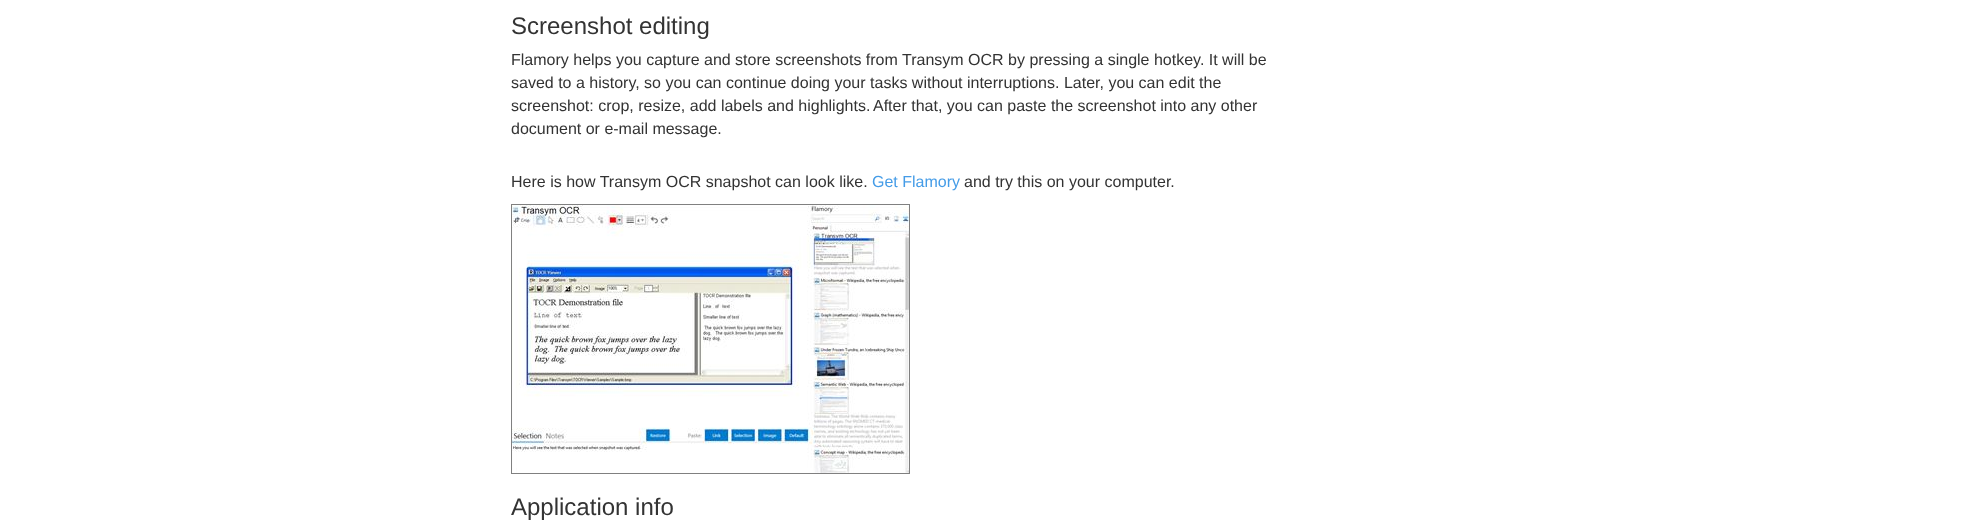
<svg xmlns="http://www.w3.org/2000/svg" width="1961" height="523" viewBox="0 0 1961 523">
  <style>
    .t1 { font: 24px Liberation Sans; fill: #333; }
    .t2 { font: 16px Liberation Sans; fill: #333; }
    .t3 { font: 16px Liberation Sans; fill: #459ce7; }
  </style>
  <rect width="100%" height="100%" fill="#fff"/>
  <text x="511" y="34" class="t1">Screenshot editing</text>
  <text x="511" y="65" class="t2">Flamory helps you capture and store screenshots from Transym OCR by pressing a single hotkey. It will be</text>
  <text x="511" y="88" class="t2">saved to a history, so you can continue doing your tasks without interruptions. Later, you can edit the</text>
  <text x="511" y="111" class="t2">screenshot: crop, resize, add labels and highlights.</text>
  <text x="873" y="111" class="t2">After that, you can paste the screenshot into any other</text>
  <text x="511" y="134" class="t2">document or e-mail message.</text>
  <text x="511" y="187" class="t2">Here is how Transym OCR snapshot can look like.</text>
  <text x="872" y="187" class="t3">Get Flamory</text>
  <text x="964" y="187" class="t2">and try this on your computer.</text>
  <image x="512" y="205" width="397" height="268" href="images/1.png"/>
  <rect x="511.5" y="204.5" width="398" height="269" fill="none" stroke="#808080"/>
  <text x="511" y="515" class="t1">Application info</text>
</svg>
